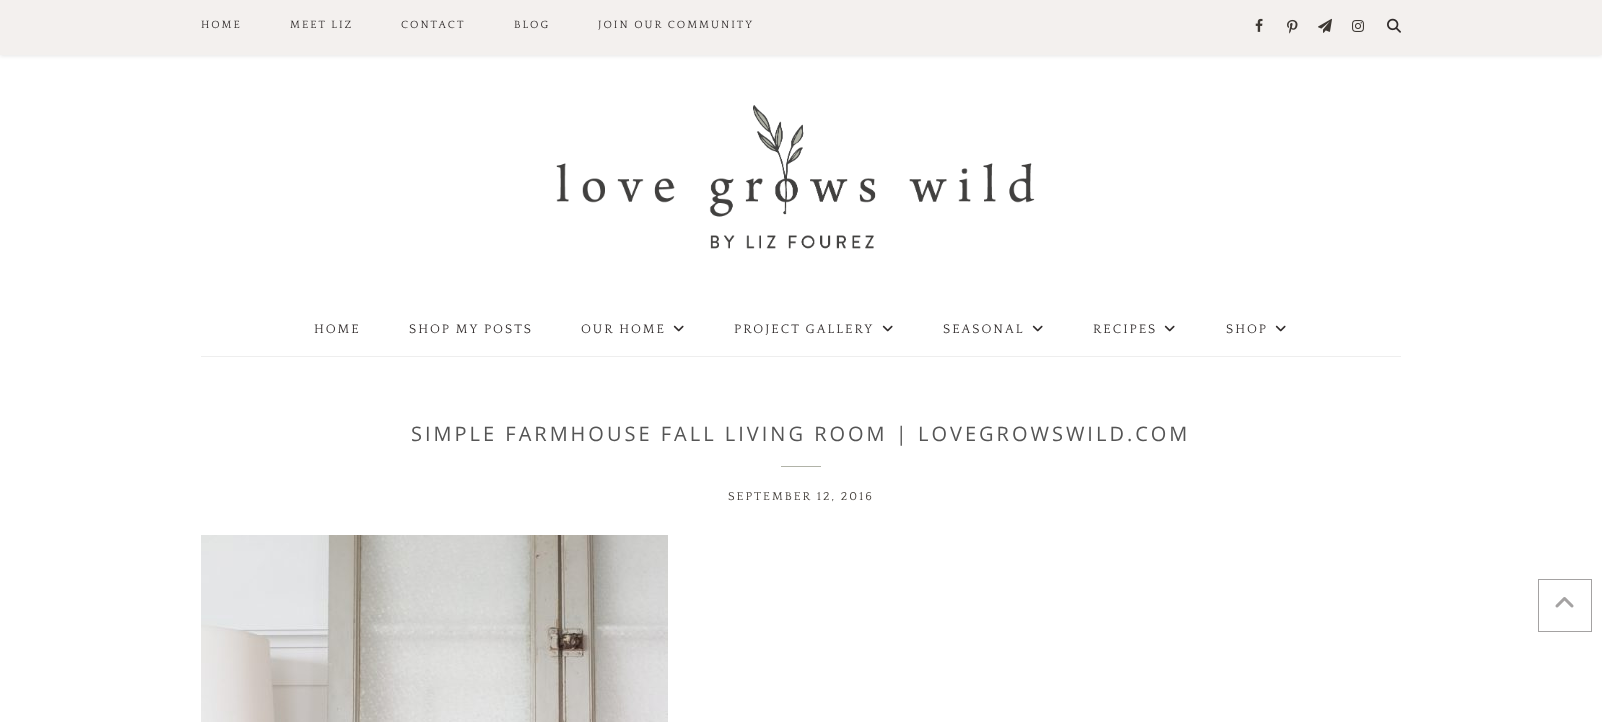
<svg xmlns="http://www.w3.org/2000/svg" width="1602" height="722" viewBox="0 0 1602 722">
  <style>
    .t1 { font: 11px Quattrocento; letter-spacing: 2px; fill: #302b2b; }
    .t2 { font: 13px Quattrocento; letter-spacing: 2px; fill: #302b2b; }
    .t3 { font: 20px Open Sans; letter-spacing: 3px; fill: #555; }
    .t4 { font: 12px Quattrocento; letter-spacing: 2px; fill: #3d3833; }
  </style>
  <rect width="100%" height="100%" fill="#fff"/>
  <rect x="0" y="1" width="1602" height="55" fill="#0000001a" filter="blur(2px)"/>
  <rect x="0" y="0" width="1602" height="55" fill="#f3f0ee"/>
  <text x="201" y="28" class="t1">HOME</text>
  <text x="290" y="28" class="t1">MEET LIZ</text>
  <text x="401" y="28" class="t1">CONTACT</text>
  <text x="514" y="28" class="t1">BLOG</text>
  <text x="598" y="28" class="t1">JOIN OUR COMMUNITY</text>
  <image x="1255" y="18" width="8" height="14" href="images/1.png"/>
  <image x="1287" y="19" width="11" height="15" href="images/2.png"/>
  <image x="1318" y="18" width="14" height="15" href="images/3.png"/>
  <image x="1352" y="20" width="12" height="12" href="images/4.png"/>
  <image x="1387" y="18" width="14" height="15" href="images/5.png"/>
  <image x="556" y="105" width="479" height="144" href="images/6.png"/>
  <rect x="201" y="356" width="1200" height="1" fill="#eee"/>
  <text x="314" y="333" class="t2">HOME</text>
  <text x="409" y="333" class="t2">SHOP MY POSTS</text>
  <text x="581" y="333" class="t2">OUR HOME</text>
  <image x="673" y="325" width="11" height="7" href="images/7.png"/>
  <text x="734" y="333" class="t2">PROJECT GALLERY</text>
  <image x="882" y="325" width="11" height="7" href="images/7.png"/>
  <text x="943" y="333" class="t2">SEASONAL</text>
  <image x="1032" y="325" width="11" height="7" href="images/7.png"/>
  <text x="1093" y="333" class="t2">RECIPES</text>
  <image x="1164" y="325" width="11" height="7" href="images/7.png"/>
  <text x="1226" y="333" class="t2">SHOP</text>
  <image x="1275" y="325" width="11" height="7" href="images/7.png"/>
  <text x="411" y="441" class="t3">SIMPLE FARMHOUSE FALL LIVING ROOM | LOVEGROWSWILD.COM</text>
  <rect x="781" y="466" width="40" height="1" fill="#b1b3a8"/>
  <text x="728" y="500" class="t4">SEPTEMBER 12, 2016</text>
  <image x="201" y="535" width="467" height="187" href="images/8.png"/>
  <rect x="1538.5" y="579.5" width="53" height="52" fill="none" stroke="#a4a2a2"/>
  <image x="1555" y="597" width="19" height="11" href="images/9.png"/>
</svg>
